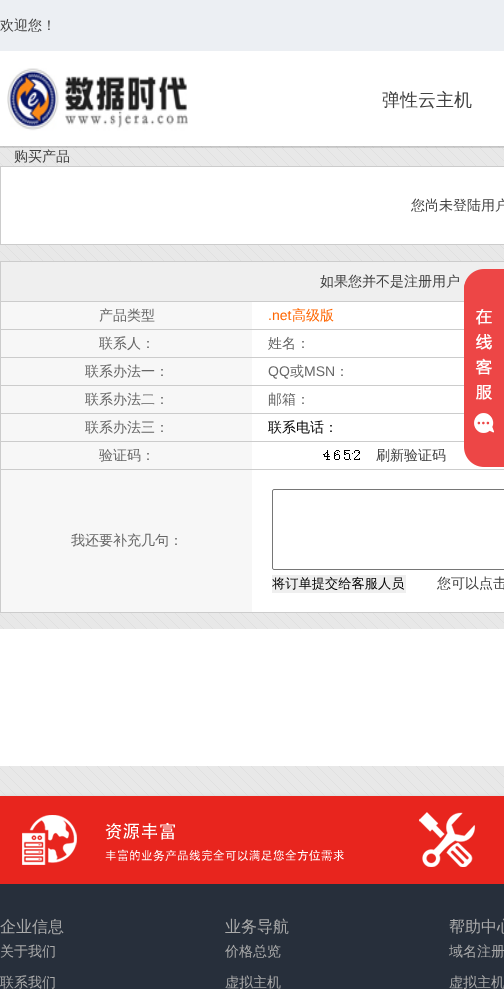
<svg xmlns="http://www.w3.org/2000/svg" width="504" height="989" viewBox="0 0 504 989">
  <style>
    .t1 { font: 500 14px WenQuanYi Zen Hei; fill: #404040; }
    .t2 { font: 500 18px WenQuanYi Zen Hei; fill: #404040; }
    .t3 { font: 500 14px WenQuanYi Zen Hei; fill: #666; }
    .t4 { font: 14px Liberation Sans; fill: #f60; }
    .t5 { font: 500 14px WenQuanYi Zen Hei; fill: #f60; }
    .t6 { font: 14px Liberation Sans; fill: #666; }
    .t7 { font: 500 14px WenQuanYi Zen Hei; fill: #000; }
    .t8 { font: 500 13.25px WenQuanYi Zen Hei; fill: #000; }
    .t9 { font: 500 16px WenQuanYi Zen Hei; fill: #aaa; }
    .t10 { font: 500 14px WenQuanYi Zen Hei; fill: #aaa; }
  </style>
  <rect width="100%" height="100%" fill="#fff"/>
  <image x="0" y="148" width="504" height="648" href="images/1.png"/>
  <rect x="0" y="0" width="504" height="51" fill="#eceff3"/>
  <text x="0" y="30" class="t1">欢迎您！</text>
  <image x="0" y="51" width="504" height="97" href="images/2.png"/>
  <image x="7" y="68" width="181" height="63" href="images/3.png"/>
  <text x="382" y="106" class="t2">弹性云主机</text>
  <text x="14" y="161" class="t1">购买产品</text>
  <rect x="0" y="166" width="504" height="79" fill="#ccc"/>
  <rect x="1" y="167" width="503" height="77" fill="#fff"/>
  <text x="411" y="210" class="t1">您尚未登陆用户</text>
  <rect x="0" y="261" width="504" height="352" fill="#ccc"/>
  <rect x="1" y="262" width="503" height="39" fill="#efefef"/>
  <text x="320" y="286" class="t1">如果您并不是注册用户</text>
  <rect x="252" y="302" width="212" height="27" fill="#fff"/>
  <rect x="1" y="302" width="251" height="27" fill="#f7f7f7"/>
  <text x="99" y="320" class="t3">产品类型</text>
  <text x="268" y="320" class="t4">.net</text>
  <text x="292" y="320" class="t5">高级版</text>
  <rect x="252" y="330" width="212" height="27" fill="#fff"/>
  <rect x="1" y="330" width="251" height="27" fill="#f7f7f7"/>
  <text x="99" y="348" class="t3">联系人：</text>
  <text x="268" y="348" class="t3">姓名：</text>
  <rect x="252" y="358" width="212" height="27" fill="#fff"/>
  <rect x="1" y="358" width="251" height="27" fill="#f7f7f7"/>
  <text x="85" y="376" class="t3">联系办法一：</text>
  <text x="268" y="376" class="t6">QQ</text>
  <text x="290" y="376" class="t3">或</text>
  <text x="304" y="376" class="t6">MSN</text>
  <text x="335" y="376" class="t3">：</text>
  <rect x="252" y="386" width="212" height="27" fill="#fff"/>
  <rect x="1" y="386" width="251" height="27" fill="#f7f7f7"/>
  <text x="85" y="404" class="t3">联系办法二：</text>
  <text x="268" y="404" class="t3">邮箱：</text>
  <rect x="252" y="414" width="212" height="27" fill="#fff"/>
  <rect x="1" y="414" width="251" height="27" fill="#f7f7f7"/>
  <text x="85" y="432" class="t3">联系办法三：</text>
  <text x="268" y="432" class="t7">联系电话：</text>
  <rect x="252" y="442" width="252" height="27" fill="#fff"/>
  <rect x="1" y="442" width="251" height="27" fill="#f7f7f7"/>
  <text x="99" y="460" class="t3">验证码：</text>
  <image x="323" y="450" width="37" height="10" href="images/4.png"/>
  <text x="376" y="460" class="t1">刷新验证码</text>
  <rect x="252" y="470" width="252" height="142" fill="#fff"/>
  <rect x="1" y="470" width="251" height="142" fill="#f7f7f7"/>
  <text x="71" y="545" class="t3">我还要补充几句：</text>
  <rect x="272.5" y="489.5" width="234" height="80" rx="1.5" fill="none" stroke="#767676"/>
  <rect x="272" y="575" width="134" height="18" fill="#efefef"/>
  <text x="272" y="588" class="t8">将订单提交给客服人员</text>
  <text x="437" y="588" class="t1">您可以点击</text>
  <rect x="0" y="629" width="504" height="137" fill="#fff"/>
  <rect x="0" y="795" width="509" height="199" fill="#ddd" filter="blur(1.5px)"/>
  <rect x="0" y="884" width="504" height="105" fill="#272f3b"/>
  <image x="464" y="269" width="40" height="198" href="images/5.png"/>
  <rect x="0" y="796" width="504" height="88" fill="#e8251e"/>
  <image x="22" y="815" width="322" height="50" href="images/6.png"/>
  <image x="419" y="812" width="56" height="55" href="images/7.png"/>
  <text x="0" y="932" class="t9">企业信息</text>
  <text x="225" y="932" class="t9">业务导航</text>
  <text x="449" y="932" class="t9">帮助中心</text>
  <text x="0" y="956" class="t10">关于我们</text>
  <text x="225" y="956" class="t10">价格总览</text>
  <text x="449" y="956" class="t10">域名注册</text>
  <text x="0" y="987" class="t10">联系我们</text>
  <text x="225" y="987" class="t10">虚拟主机</text>
  <text x="449" y="987" class="t10">虚拟主机</text>
</svg>
